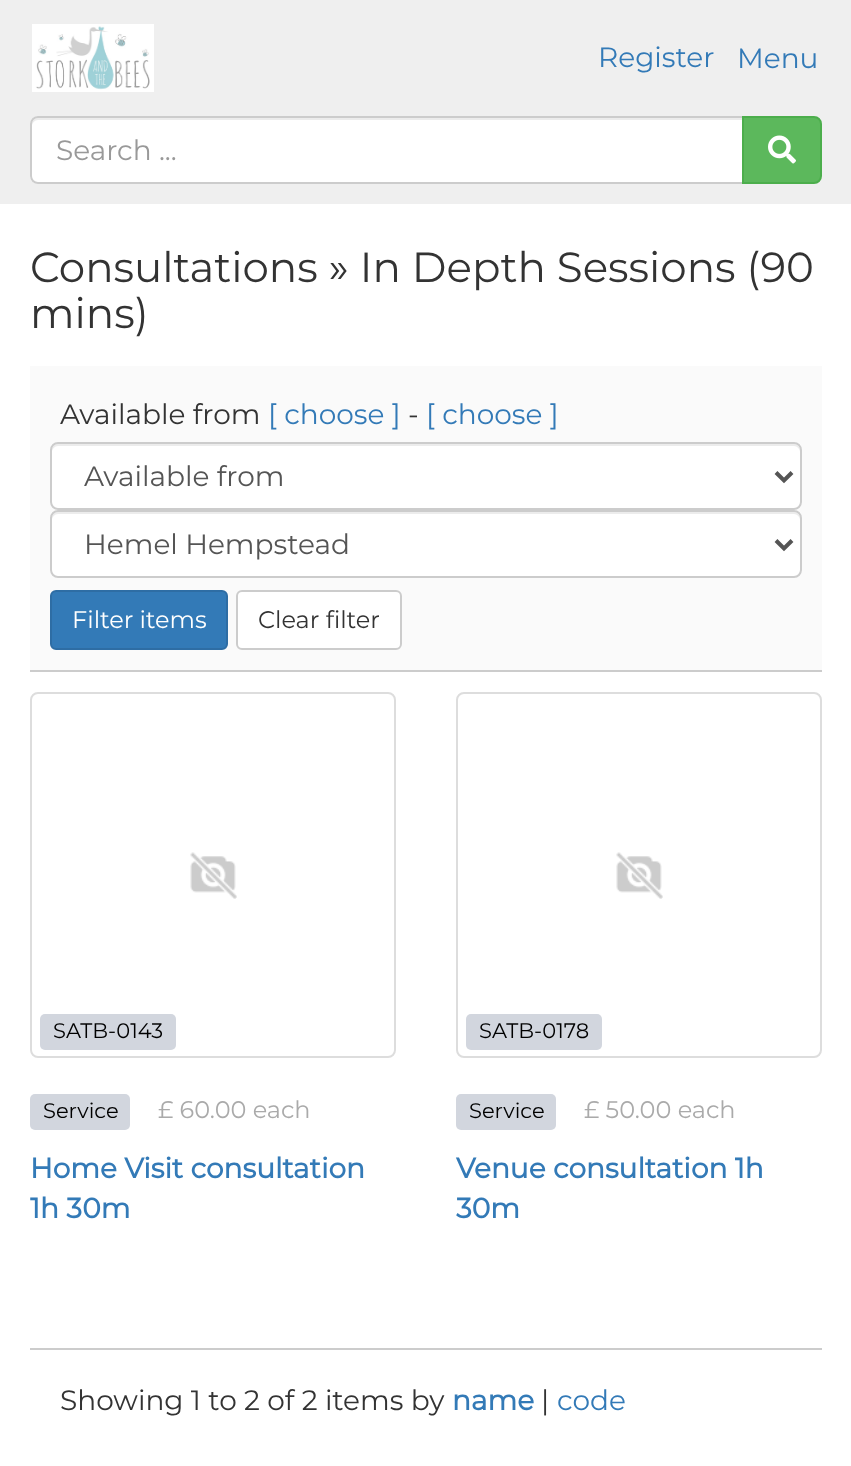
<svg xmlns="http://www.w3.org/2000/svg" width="851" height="1466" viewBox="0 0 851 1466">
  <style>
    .t1 { font: 100 28px Montserrat; fill: #337ab7; }
    .t2 { font: 100 28px Montserrat; fill: #999; }
    .t3 { font: 100 42px Montserrat; fill: #333; }
    .t4 { font: 100 28px Montserrat; fill: #333; }
    .t5 { font: 100 28px Montserrat; fill: #555; }
    .t6 { font: 100 24px Montserrat; fill: #fff; }
    .t7 { font: 100 24px Montserrat; fill: #333; }
    .t8 { font: 100 21px Montserrat; fill: #000; }
    .t9 { font: 100 24px Montserrat; fill: #aaa; }
    .t10 { font: bold 28px Montserrat; fill: #337ab7; }
  </style>
  <rect width="100%" height="100%" fill="#fff"/>
  <rect x="0" y="0" width="851" height="204" fill="#efefef"/>
  <image x="32" y="24" width="122" height="68" href="images/1.png"/>
  <text x="598" y="67" class="t1">Register</text>
  <text x="737" y="68" class="t1">Menu</text>
  <path d="M38 116H744V184H38C33.5 184 30 180.5 30 176V124C30 119.5 33.5 116 38 116Z" fill="#fff"/>
  <path d="M38 120H742V118H38C35 118 32 121 32 124V126C32 123 35 120 38 120Z" fill="#ececec"/>
  <path d="M38 117H743V183H38C34 183 31 180 31 176V124C31 120 34 117 38 117Z" fill="none" stroke="#ccc" stroke-width="2"/>
  <text x="56" y="160" class="t2">Search ...</text>
  <path d="M743 117H814C818 117 821 120 821 124V176C821 180 818 183 814 183H743Z" fill="#5cb85c" stroke="#4cae4c" stroke-width="2"/>
  <image x="768" y="135" width="28" height="29" href="images/2.png"/>
  <text x="30" y="282" class="t3">Consultations » In Depth Sessions (90</text>
  <text x="30" y="328" class="t3">mins)</text>
  <rect x="30" y="366" width="792" height="304" fill="#fafafa"/>
  <rect x="30" y="670" width="792" height="2" fill="#ccc"/>
  <text x="60" y="424" class="t4">Available from</text>
  <text x="268" y="424" class="t1">[ choose ]</text>
  <text x="408" y="424" class="t4">-</text>
  <text x="426" y="424" class="t1">[ choose ]</text>
  <rect x="50" y="442" width="752" height="68" rx="8" fill="#fff"/>
  <path d="M58 446H794C797 446 800 449 800 452V450C800 447 797 444 794 444H58C55 444 52 447 52 450V452C52 449 55 446 58 446Z" fill="#ececec"/>
  <rect x="51" y="443" width="750" height="66" rx="7" fill="none" stroke="#ccc" stroke-width="2"/>
  <path d="M776 472.5L784 480.5L792 472.5" fill="none" stroke="#555" stroke-width="4"/>
  <text x="84" y="486" class="t5">Available from</text>
  <rect x="50" y="510" width="752" height="68" rx="8" fill="#fff"/>
  <path d="M58 514H794C797 514 800 517 800 520V518C800 515 797 512 794 512H58C55 512 52 515 52 518V520C52 517 55 514 58 514Z" fill="#ececec"/>
  <rect x="51" y="511" width="750" height="66" rx="7" fill="none" stroke="#ccc" stroke-width="2"/>
  <path d="M776 540.5L784 548.5L792 540.5" fill="none" stroke="#555" stroke-width="4"/>
  <text x="84" y="554" class="t5">Hemel Hempstead</text>
  <rect x="51" y="591" width="176" height="58" rx="5" fill="#337ab7" stroke="#2e6da4" stroke-width="2"/>
  <text x="72" y="628" class="t6">Filter items</text>
  <rect x="237" y="591" width="164" height="58" rx="5" fill="#fff" stroke="#ccc" stroke-width="2"/>
  <text x="258" y="628" class="t7">Clear filter</text>
  <rect x="31" y="693" width="364" height="364" rx="7" fill="none" stroke="#ddd" stroke-width="2"/>
  <image x="190" y="852" width="47" height="47" href="images/3.png"/>
  <rect x="40" y="1014" width="136" height="36" rx="5" fill="#d2d6de"/>
  <text x="53" y="1038" class="t8">SATB-0143</text>
  <rect x="30" y="1094" width="100" height="36" rx="5" fill="#d2d6de"/>
  <text x="43" y="1118" class="t8">Service</text>
  <text x="158" y="1118" class="t9">£ 60.00 each</text>
  <text x="30" y="1178" class="t10">Home Visit consultation</text>
  <text x="30" y="1218" class="t10">1h 30m</text>
  <rect x="457" y="693" width="364" height="364" rx="7" fill="none" stroke="#ddd" stroke-width="2"/>
  <image x="616" y="852" width="47" height="47" href="images/3.png"/>
  <rect x="466" y="1014" width="136" height="36" rx="5" fill="#d2d6de"/>
  <text x="479" y="1038" class="t8">SATB-0178</text>
  <rect x="456" y="1094" width="100" height="36" rx="5" fill="#d2d6de"/>
  <text x="469" y="1118" class="t8">Service</text>
  <text x="584" y="1118" class="t9">£ 50.00 each</text>
  <text x="456" y="1178" class="t10">Venue consultation 1h</text>
  <text x="456" y="1218" class="t10">30m</text>
  <rect x="30" y="1348" width="792" height="2" fill="#ccc"/>
  <text x="60" y="1410" class="t4">Showing 1 to 2 of 2 items by</text>
  <text x="452" y="1410" class="t10">name</text>
  <text x="541" y="1410" class="t4">|</text>
  <text x="557" y="1410" class="t1">code</text>
</svg>
